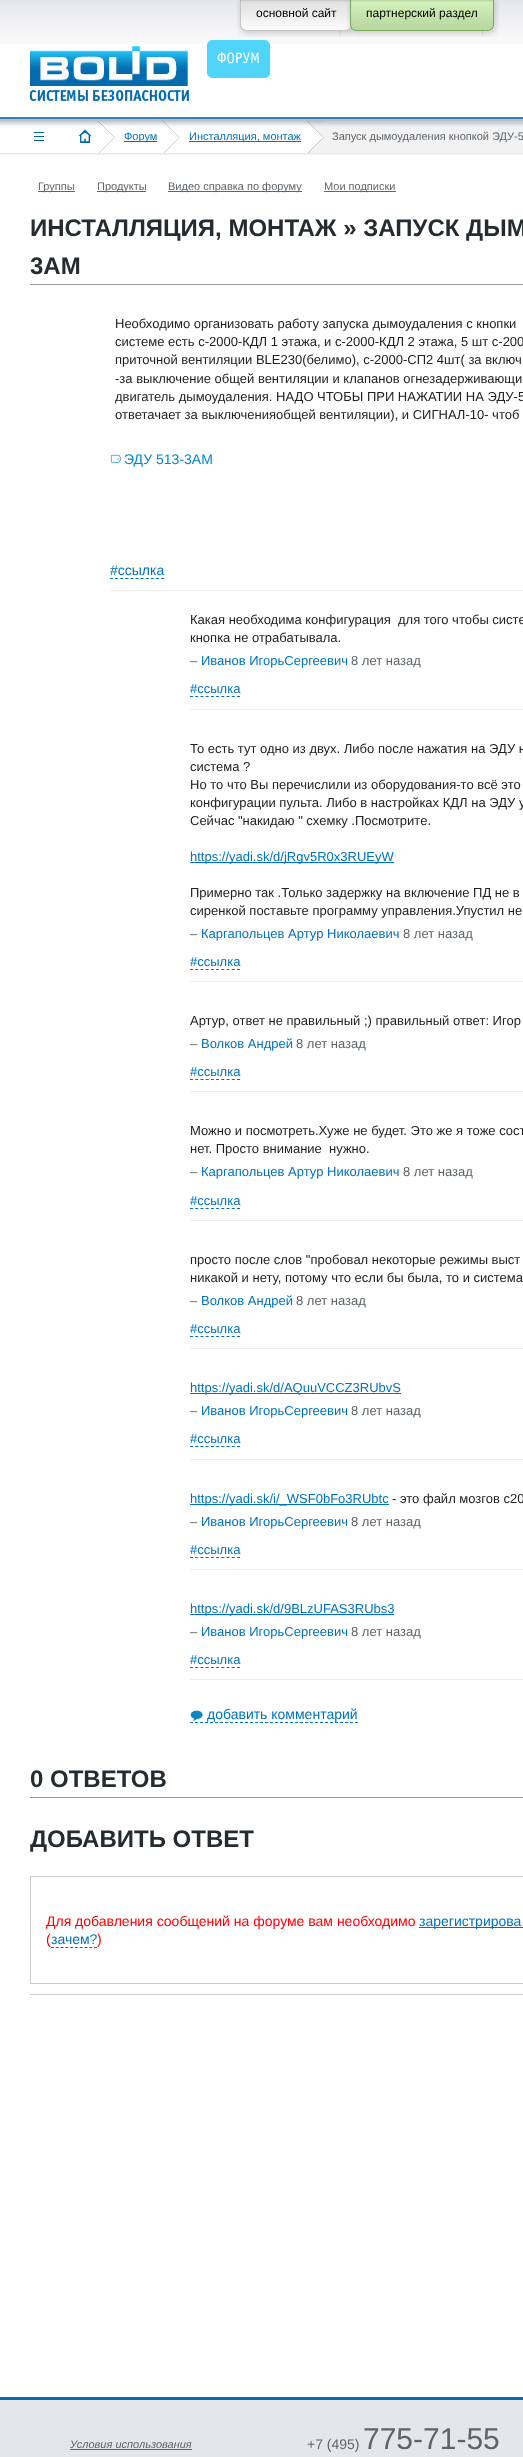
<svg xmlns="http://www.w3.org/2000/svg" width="523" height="2457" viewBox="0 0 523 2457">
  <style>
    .t1 { font: 12px Liberation Sans; fill: #000; }
    .t2 { font: 15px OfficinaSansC; fill: #fff; }
    .t3 { font: 11px Liberation Sans; fill: #0072bc; }
    .t4 { font: 11px Liberation Sans; fill: #5e656a; }
    .t5 { font: bold 24px Liberation Sans; fill: #252c30; }
    .t6 { font: 13px Liberation Sans; fill: #222; }
    .t7 { font: 14px Liberation Sans; fill: #08c; }
    .t8 { font: 14px Liberation Sans; fill: #0072bc; }
    .t9 { font: 13px Liberation Sans; fill: #5e656a; }
    .t10 { font: 13px Liberation Sans; fill: #0072bc; }
    .t11 { font: 14px Liberation Sans; fill: #f00; }
    .t12 { font: italic 11px Liberation Sans; fill: #5e656a; }
    .t13 { font: 14px Liberation Sans; fill: #5e656a; }
    .t14 { font: 30px Liberation Sans; fill: #5e656a; }
  </style>
  <rect width="100%" height="100%" fill="#fff"/>
  <image x="0" y="0" width="523" height="44" href="images/1.png"/>
  <image x="339" y="0" width="17" height="37" href="images/2.png"/>
  <image x="237" y="0" width="104" height="37" href="images/3.png"/>
  <text x="256" y="17" class="t1">основной сайт</text>
  <image x="482" y="0" width="17" height="37" href="images/4.png"/>
  <image x="347" y="0" width="136" height="37" href="images/5.png"/>
  <text x="366" y="17" class="t1">партнерский раздел</text>
  <image x="30" y="46" width="159" height="55" href="images/6.png"/>
  <image x="265" y="40" width="5" height="38" href="images/7.png"/>
  <image x="207" y="40" width="58" height="38" href="images/8.png"/>
  <text x="217" y="63" class="t2">ФОРУМ</text>
  <image x="0" y="117" width="523" height="38" href="images/9.png"/>
  <image x="34" y="132" width="10" height="9" href="images/10.png"/>
  <image x="98" y="121" width="17" height="32" href="images/11.png"/>
  <image x="78" y="129" width="14" height="14" href="images/12.png"/>
  <image x="163" y="121" width="17" height="32" href="images/11.png"/>
  <rect x="124" y="141" width="33" height="1" fill="#0072bc"/>
  <text x="124" y="140" class="t3">Форум</text>
  <rect x="189" y="141" width="112" height="1" fill="#0072bc"/>
  <text x="189" y="140" class="t3">Инсталляция, монтаж</text>
  <image x="324" y="122" width="199" height="31" href="images/13.png"/>
  <image x="307" y="121" width="17" height="32" href="images/14.png"/>
  <text x="332" y="140" class="t4">Запуск дымоудаления кнопкой ЭДУ-5</text>
  <rect x="38" y="191" width="37" height="1" fill="#5e656a"/>
  <text x="38" y="190" class="t4">Группы</text>
  <rect x="97" y="191" width="49" height="1" fill="#5e656a"/>
  <text x="97" y="190" class="t4">Продукты</text>
  <rect x="168" y="191" width="134" height="1" fill="#5e656a"/>
  <text x="168" y="190" class="t4">Видео справка по форуму</text>
  <rect x="324" y="191" width="72" height="1" fill="#5e656a"/>
  <text x="324" y="190" class="t4">Мои подписки</text>
  <text x="30" y="236" class="t5">ИНСТАЛЛЯЦИЯ, МОНТАЖ » ЗАПУСК ДЫМ</text>
  <text x="30" y="274" class="t5">3АМ</text>
  <rect x="30" y="284" width="493" height="1" fill="#999"/>
  <text x="115" y="328" class="t6">Необходимо организовать работу запуска дымоудаления с кнопки</text>
  <text x="115" y="346" class="t6">системе есть с-2000-КДЛ 1 этажа, и с-2000-КДЛ 2 этажа, 5 шт с-200</text>
  <text x="115" y="364" class="t6">приточной вентиляции BLE230(белимо), с-2000-СП2 4шт( за включ</text>
  <text x="115" y="383" class="t6">-за выключение общей вентиляции и клапанов огнезадерживающи</text>
  <text x="115" y="401" class="t6">двигатель дымоудаления. НАДО ЧТОБЫ ПРИ НАЖАТИИ НА ЭДУ-5</text>
  <text x="115" y="419" class="t6">ответачает за выключенияобщей вентиляции), и СИГНАЛ-10- чтоб</text>
  <image x="110" y="454" width="12" height="9" href="images/15.png"/>
  <text x="124" y="464" class="t7">ЭДУ 513-3АМ</text>
  <rect x="110" y="590" width="413" height="1" fill="#eee"/>
  <text x="110" y="575" class="t8">#ссылка</text>
  <path d="M110 578.5H164" fill="none" stroke="#0072bc" stroke-dasharray="3 2.1"/>
  <text x="190" y="624" class="t6" xml:space="preserve">Какая необходима конфигурация  для того чтобы систе</text>
  <text x="190" y="642" class="t6">кнопка не отрабатывала.</text>
  <text x="190" y="665" class="t9">–</text>
  <text x="201" y="665" class="t10">Иванов ИгорьСергеевич</text>
  <text x="351" y="665" class="t9">8 лет назад</text>
  <rect x="190" y="709" width="333" height="1" fill="#eee"/>
  <text x="190" y="693" class="t10">#ссылка</text>
  <path d="M190 696.5H240" fill="none" stroke="#0072bc" stroke-dasharray="3 2.22"/>
  <text x="190" y="753" class="t6">То есть тут одно из двух. Либо после нажатия на ЭДУ н</text>
  <text x="190" y="771" class="t6">система ?</text>
  <text x="190" y="789" class="t6">Но то что Вы перечислили из оборудования-то всё это</text>
  <text x="190" y="807" class="t6">конфигурации пульта. Либо в настройках КДЛ на ЭДУ у</text>
  <text x="190" y="825" class="t6">Сейчас "накидаю " схемку .Посмотрите.</text>
  <rect x="190" y="862" width="204" height="1" fill="#0072bc"/>
  <text x="190" y="861" class="t10">https://yadi.sk/d/jRgv5R0x3RUEyW</text>
  <text x="190" y="897" class="t6">Примерно так .Только задержку на включение ПД не в</text>
  <text x="190" y="915" class="t6">сиренкой поставьте программу управления.Упустил не</text>
  <text x="190" y="938" class="t9">–</text>
  <text x="201" y="938" class="t10">Каргапольцев Артур Николаевич</text>
  <text x="403" y="938" class="t9">8 лет назад</text>
  <rect x="190" y="981" width="333" height="1" fill="#eee"/>
  <text x="190" y="966" class="t10">#ссылка</text>
  <path d="M190 969.5H240" fill="none" stroke="#0072bc" stroke-dasharray="3 2.22"/>
  <text x="190" y="1025" class="t6">Артур, ответ не правильный ;) правильный ответ: Игор</text>
  <text x="190" y="1048" class="t9">–</text>
  <text x="201" y="1048" class="t10">Волков Андрей</text>
  <text x="296" y="1048" class="t9">8 лет назад</text>
  <rect x="190" y="1091" width="333" height="1" fill="#eee"/>
  <text x="190" y="1076" class="t10">#ссылка</text>
  <path d="M190 1079.5H240" fill="none" stroke="#0072bc" stroke-dasharray="3 2.22"/>
  <text x="190" y="1135" class="t6">Можно и посмотреть.Хуже не будет. Это же я тоже сост</text>
  <text x="190" y="1153" class="t6" xml:space="preserve">нет. Просто внимание  нужно.</text>
  <text x="190" y="1176" class="t9">–</text>
  <text x="201" y="1176" class="t10">Каргапольцев Артур Николаевич</text>
  <text x="403" y="1176" class="t9">8 лет назад</text>
  <rect x="190" y="1220" width="333" height="1" fill="#eee"/>
  <text x="190" y="1205" class="t10">#ссылка</text>
  <path d="M190 1208.5H240" fill="none" stroke="#0072bc" stroke-dasharray="3 2.22"/>
  <text x="190" y="1264" class="t6">просто после слов "пробовал некоторые режимы выст</text>
  <text x="190" y="1282" class="t6">никакой и нету, потому что если бы была, то и система</text>
  <text x="190" y="1305" class="t9">–</text>
  <text x="201" y="1305" class="t10">Волков Андрей</text>
  <text x="296" y="1305" class="t9">8 лет назад</text>
  <rect x="190" y="1348" width="333" height="1" fill="#eee"/>
  <text x="190" y="1333" class="t10">#ссылка</text>
  <path d="M190 1336.5H240" fill="none" stroke="#0072bc" stroke-dasharray="3 2.22"/>
  <rect x="190" y="1393" width="211" height="1" fill="#0072bc"/>
  <text x="190" y="1392" class="t10">https://yadi.sk/d/AQuuVCCZ3RUbvS</text>
  <text x="190" y="1415" class="t9">–</text>
  <text x="201" y="1415" class="t10">Иванов ИгорьСергеевич</text>
  <text x="351" y="1415" class="t9">8 лет назад</text>
  <rect x="190" y="1459" width="333" height="1" fill="#eee"/>
  <text x="190" y="1443" class="t10">#ссылка</text>
  <path d="M190 1446.5H240" fill="none" stroke="#0072bc" stroke-dasharray="3 2.22"/>
  <rect x="190" y="1504" width="199" height="1" fill="#0072bc"/>
  <text x="190" y="1503" class="t10">https://yadi.sk/i/_WSF0bFo3RUbtc</text>
  <text x="392" y="1503" class="t6">- это файл мозгов с20</text>
  <text x="190" y="1526" class="t9">–</text>
  <text x="201" y="1526" class="t10">Иванов ИгорьСергеевич</text>
  <text x="351" y="1526" class="t9">8 лет назад</text>
  <rect x="190" y="1569" width="333" height="1" fill="#eee"/>
  <text x="190" y="1554" class="t10">#ссылка</text>
  <path d="M190 1557.5H240" fill="none" stroke="#0072bc" stroke-dasharray="3 2.22"/>
  <rect x="190" y="1614" width="204" height="1" fill="#0072bc"/>
  <text x="190" y="1613" class="t10">https://yadi.sk/d/9BLzUFAS3RUbs3</text>
  <text x="190" y="1636" class="t9">–</text>
  <text x="201" y="1636" class="t10">Иванов ИгорьСергеевич</text>
  <text x="351" y="1636" class="t9">8 лет назад</text>
  <rect x="190" y="1679" width="333" height="1" fill="#eee"/>
  <text x="190" y="1664" class="t10">#ссылка</text>
  <path d="M190 1667.5H240" fill="none" stroke="#0072bc" stroke-dasharray="3 2.22"/>
  <image x="190" y="1710" width="13" height="11" href="images/16.png"/>
  <text x="207" y="1719" class="t8">добавить комментарий</text>
  <path d="M190 1722.5H358" fill="none" stroke="#0072bc" stroke-dasharray="3 2"/>
  <text x="30" y="1787" class="t5">0 ОТВЕТОВ</text>
  <rect x="30" y="1797" width="493" height="1" fill="#999"/>
  <text x="30" y="1847" class="t5">ДОБАВИТЬ ОТВЕТ</text>
  <rect x="30" y="1994" width="493" height="1" fill="#ccc"/>
  <rect x="30.5" y="1876.5" width="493" height="107" fill="none" stroke="#ccc"/>
  <text x="46" y="1926" class="t11">Для добавления сообщений на форуме вам необходимо</text>
  <rect x="419" y="1927" width="104" height="1" fill="#0072bc"/>
  <text x="419" y="1926" class="t8">зарегистрирова</text>
  <text x="46" y="1944" class="t11">(</text>
  <path d="M51 1947.5H97" fill="none" stroke="#0072bc" stroke-dasharray="3 1.78"/>
  <text x="51" y="1944" class="t8">зачем?</text>
  <text x="97" y="1944" class="t11">)</text>
  <rect x="0" y="2400" width="523" height="57" fill="#e4e7ea"/>
  <rect x="0" y="2397" width="523" height="3" fill="#046bae"/>
  <text x="70" y="2448" class="t12">Условия использования</text>
  <rect x="70" y="2449" width="122" height="1" fill="#5e656a"/>
  <text x="307" y="2449" class="t13">+7 (495)</text>
  <text x="363" y="2449" class="t14">775-71-55</text>
</svg>
